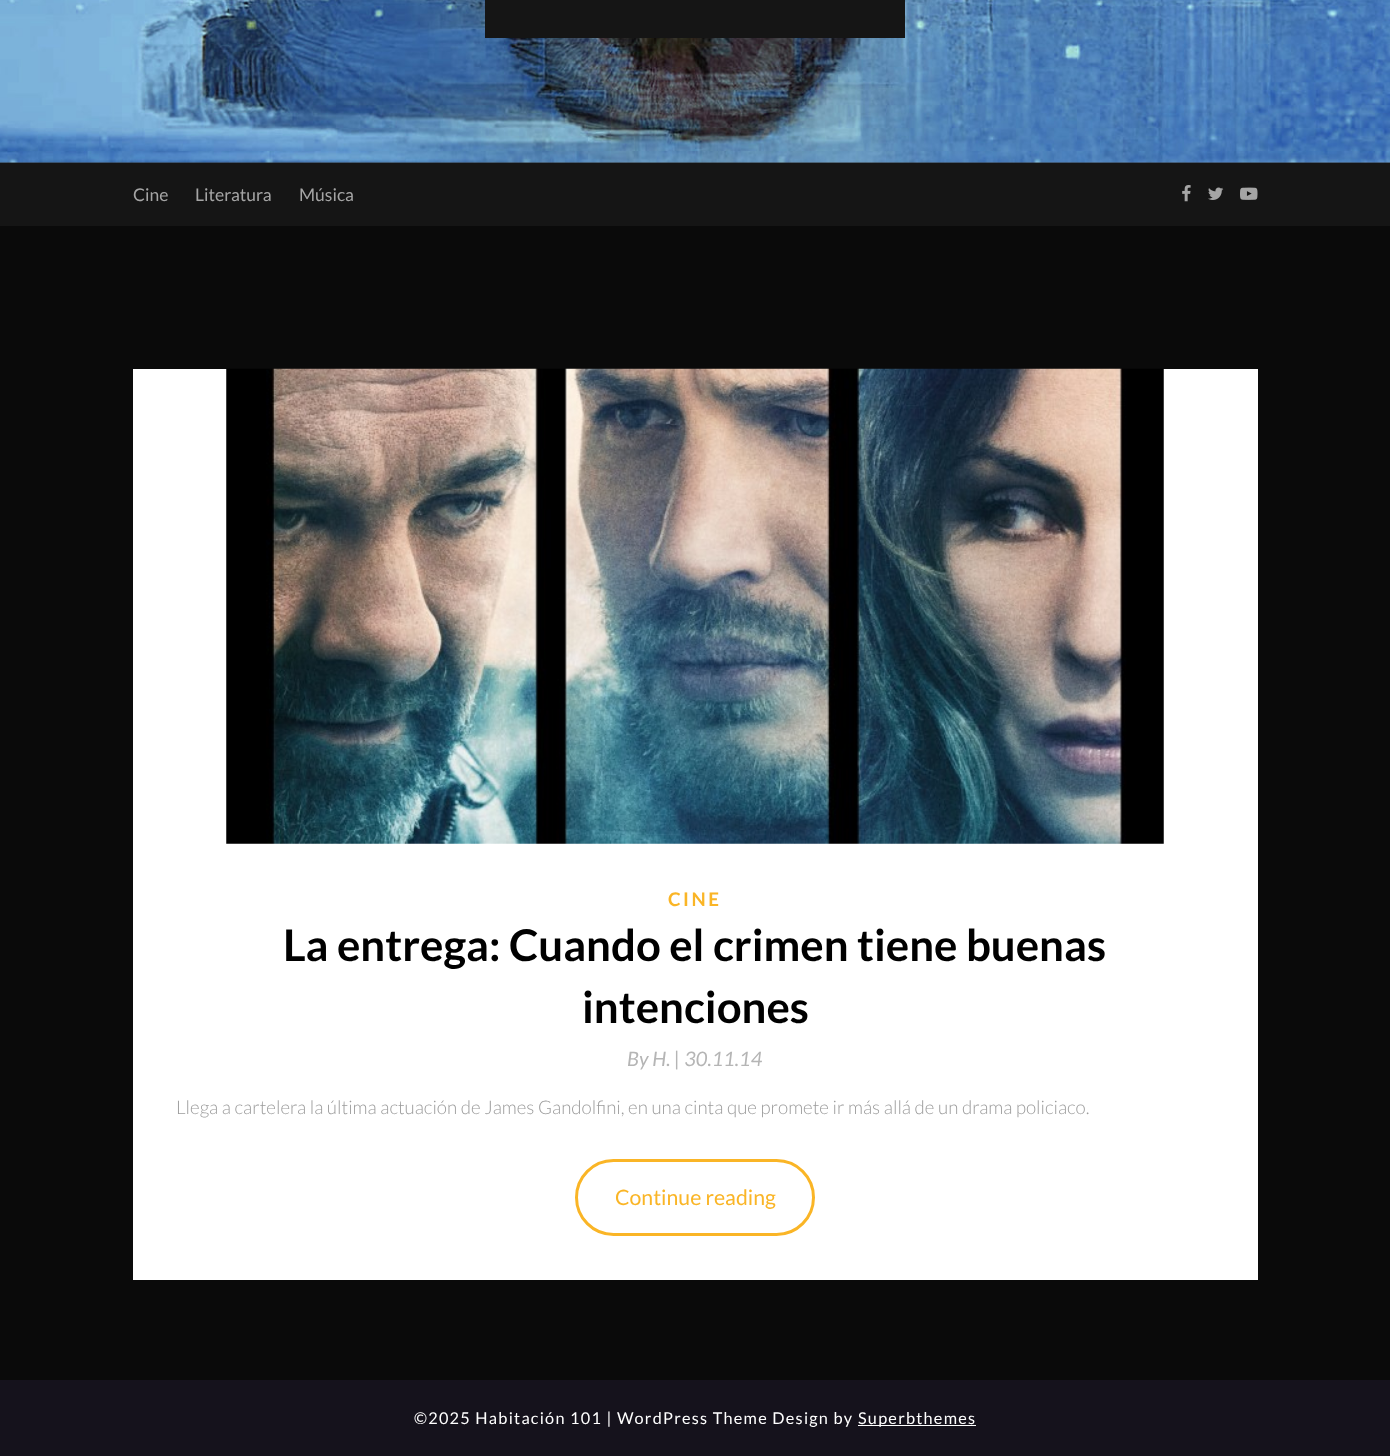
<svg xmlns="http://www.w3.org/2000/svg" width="1390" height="1456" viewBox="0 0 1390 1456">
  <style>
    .t1 { font: 17.5px Lato; fill: #a5a5a5; }
    .t2 { font: bold 18.75px Lato; letter-spacing: 2.5px; fill: #fab526; }
    .t3 { font: bold 43.75px Lato; fill: #000; }
    .t4 { font: italic 20px Lato; fill: #b5b5b5; }
    .t5 { font: 300 18.75px Lato; fill: #9c9c9c; }
    .t6 { font: 21.25px Lato; fill: #fab526; }
    .t7 { font: 16.25px Lato; letter-spacing: 1.25px; fill: #fff; }
  </style>
  <rect width="100%" height="100%" fill="#0a0a0a"/>
  <rect x="0" y="162" width="1390" height="1" fill="#333"/>
  <image x="0" y="0" width="1390" height="163" href="images/1.png"/>
  <rect x="485" y="0" width="420" height="38" fill="#151515"/>
  <rect x="0" y="163" width="1390" height="63" fill="#151515"/>
  <text x="133" y="201" class="t1">Cine</text>
  <text x="195" y="201" class="t1">Literatura</text>
  <text x="299" y="201" class="t1">Música</text>
  <image x="1182" y="185" width="9" height="17" href="images/2.png"/>
  <image x="1208" y="187" width="16" height="13" href="images/3.png"/>
  <image x="1240" y="187" width="18" height="13" href="images/4.png"/>
  <rect x="133" y="369" width="1125" height="911" fill="#fff"/>
  <image x="226" y="368" width="938" height="476" href="images/5.png"/>
  <text x="668" y="906" class="t2">CINE</text>
  <text x="283" y="961" class="t3">La entrega: Cuando el crimen tiene buenas</text>
  <text x="582" y="1023" class="t3">intenciones</text>
  <text x="627" y="1066" class="t4">By H. | 30.11.14</text>
  <text x="176" y="1114" class="t5">Llega a cartelera la última actuación de James Gandolfini, en una cinta que promete ir más allá de un drama policiaco.</text>
  <rect x="576.5" y="1160.5" width="237" height="74" rx="37" fill="none" stroke="#fab526" stroke-width="3"/>
  <text x="615" y="1205" class="t6">Continue reading</text>
  <rect x="0" y="1380" width="1390" height="76" fill="#15121c"/>
  <text x="414" y="1424" class="t7">©2025 Habitación 101 | WordPress Theme Design by</text>
  <rect x="858" y="1425" width="118" height="1" fill="#fff"/>
  <text x="858" y="1424" class="t7">Superbthemes</text>
</svg>
